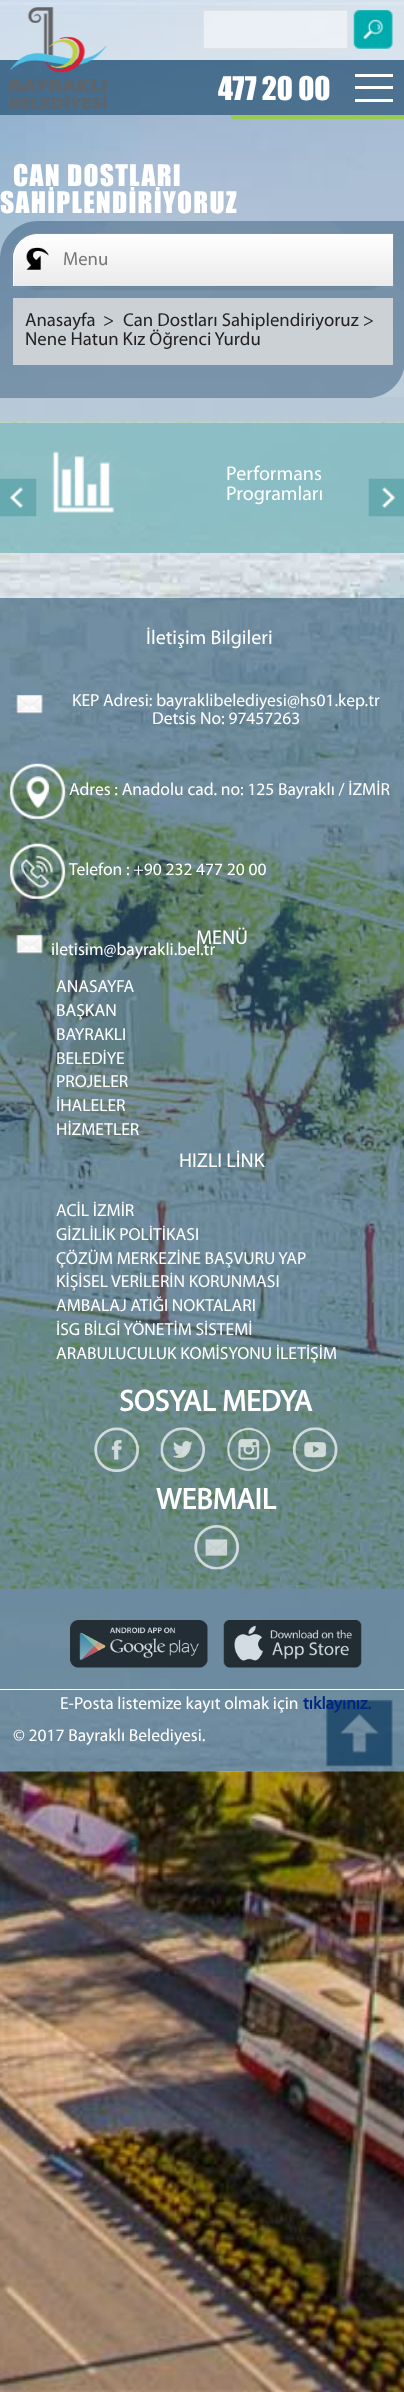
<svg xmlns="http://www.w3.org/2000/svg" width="404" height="2392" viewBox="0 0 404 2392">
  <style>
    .t1 { font: 30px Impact; fill: #fff; }
    .t2 { font: 27.5px Impact; letter-spacing: 1.25px; fill: #fff; }
    .t3 { font: 18.75px Myriad; fill: #777; }
    .t4 { font: 18.75px Myriad; fill: #222; }
    .t5 { font: 20px Myriad; fill: #fff; }
    .t6 { font: 17.5px Myriad; fill: #fff; }
    .t7 { font: bold 30px Myriad; fill: #fff; }
    .t8 { font: bold 17.5px Myriad; fill: #00277f; }
  </style>
  <defs>
    <linearGradient id="g1" gradientUnits="userSpaceOnUse" x1="203" y1="234" x2="203" y2="286"><stop offset="0.01" stop-color="#fff"/><stop offset="1" stop-color="#eaeaea"/></linearGradient>
  </defs>
  <rect width="100%" height="100%" fill="#fff"/>
  <image x="0" y="0" width="404" height="2392" href="images/1.png"/>
  <rect x="0" y="0" width="404" height="60" fill="#ffffff99"/>
  <rect x="0" y="60" width="404" height="55" fill="#133f6399"/>
  <image x="10" y="7" width="97" height="102" href="images/2.png"/>
  <rect x="203.5" y="10.5" width="144" height="38" fill="#ffffff80" stroke="#e2e2e2"/>
  <image x="353" y="10" width="40" height="39" href="images/3.png"/>
  <text x="218" y="100" class="t1">477 20 00</text>
  <rect x="355" y="74" width="38" height="3" fill="#fff"/>
  <rect x="355" y="86" width="38" height="3" fill="#fff"/>
  <rect x="355" y="99" width="38" height="3" fill="#fff"/>
  <rect x="231" y="115" width="173" height="4" fill="#98cb4f"/>
  <text x="13" y="186" class="t2">CAN DOSTLARI</text>
  <text x="0" y="213" class="t2">SAHİPLENDİRİYORUZ</text>
  <image x="0" y="221" width="404" height="176" href="images/4.png"/>
  <path d="M38 221H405V360C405 381 388 398 367 398H0V259C0 238 17 221 38 221Z" fill="#133f6366"/>
  <rect x="13" y="236" width="380" height="53" rx="25" fill="#0000001a" filter="blur(1px)"/>
  <path d="M37 233.5H393.5V287.5H11.5V259C11.5 245 23 233.5 37 233.5Z" fill="none" stroke="#9b9b9b4d"/>
  <path d="M38 234H393V286H13V259C13 245 24 234 38 234Z" fill="url(#g1)"/>
  <path d="M38 234C24 234 13 245 13 259V286H14V259C14 245 25 234 39 234Z" fill="#ffffffe6"/>
  <image x="26" y="247" width="23" height="23" href="images/5.png"/>
  <text x="63" y="265" class="t3">Menu</text>
  <rect x="13" y="298" width="380" height="67" fill="#e1e1e1cc"/>
  <text x="25" y="326" class="t4">Anasayfa</text>
  <text x="103" y="326" class="t4">&gt;</text>
  <text x="123" y="326" class="t4">Can Dostları Sahiplendiriyoruz &gt;</text>
  <text x="25" y="345" class="t4">Nene Hatun Kız Öğrenci Yurdu</text>
  <image x="0" y="422" width="404" height="1350" href="images/6.png"/>
  <rect x="0" y="423" width="404" height="130" fill="#6fb1b6b3"/>
  <image x="0" y="478" width="37" height="39" href="images/7.png"/>
  <image x="52" y="451" width="63" height="62" href="images/8.png"/>
  <text x="226" y="480" class="t5">Performans</text>
  <text x="226" y="500" class="t5">Programları</text>
  <image x="368" y="478" width="36" height="39" href="images/9.png"/>
  <rect x="0" y="598" width="404" height="1173" fill="#13406266"/>
  <rect x="0" y="598" width="404" height="1173" fill="#486d8666"/>
  <text x="146" y="644" class="t5">İletişim Bilgileri</text>
  <image x="16" y="694" width="27" height="20" href="images/10.png"/>
  <text x="72" y="706" class="t6">KEP Adresi: bayraklibelediyesi@hs01.kep.tr</text>
  <text x="152" y="724" class="t6">Detsis No: 97457263</text>
  <image x="9" y="763" width="57" height="56" href="images/11.png"/>
  <text x="69" y="795" class="t6">Adres : Anadolu cad. no: 125 Bayraklı / İZMİR</text>
  <image x="9" y="843" width="57" height="56" href="images/12.png"/>
  <text x="69" y="875" class="t6">Telefon : +90 232 477 20 00</text>
  <image x="16" y="934" width="27" height="20" href="images/13.png"/>
  <text x="51" y="955" class="t6">iletisim@bayrakli.bel.tr</text>
  <text x="196" y="944" class="t5">MENÜ</text>
  <text x="56" y="992" class="t6">ANASAYFA</text>
  <text x="56" y="1016" class="t6">BAŞKAN</text>
  <text x="56" y="1040" class="t6">BAYRAKLI</text>
  <text x="56" y="1064" class="t6">BELEDİYE</text>
  <text x="56" y="1087" class="t6">PROJELER</text>
  <text x="56" y="1111" class="t6">İHALELER</text>
  <text x="56" y="1135" class="t6">HİZMETLER</text>
  <text x="179" y="1167" class="t5">HIZLI LİNK</text>
  <text x="56" y="1216" class="t6">ACİL İZMİR</text>
  <text x="56" y="1240" class="t6">GİZLİLİK POLİTİKASI</text>
  <text x="56" y="1264" class="t6">ÇÖZÜM MERKEZİNE BAŞVURU YAP</text>
  <text x="56" y="1287" class="t6">KİŞİSEL VERİLERİN KORUNMASI</text>
  <text x="56" y="1311" class="t6">AMBALAJ ATIĞI NOKTALARI</text>
  <text x="56" y="1335" class="t6">İSG BİLGİ YÖNETİM SİSTEMİ</text>
  <text x="56" y="1359" class="t6">ARABULUCULUK KOMİSYONU İLETİŞİM</text>
  <text x="119" y="1411" class="t7">SOSYAL MEDYA</text>
  <image x="94" y="1427" width="45" height="45" href="images/14.png"/>
  <image x="160" y="1427" width="45" height="45" href="images/15.png"/>
  <image x="227" y="1427" width="44" height="45" href="images/16.png"/>
  <image x="293" y="1427" width="45" height="45" href="images/17.png"/>
  <text x="156" y="1509" class="t7">WEBMAIL</text>
  <image x="194" y="1525" width="45" height="45" href="images/18.png"/>
  <image x="70" y="1620" width="138" height="48" href="images/19.png"/>
  <image x="223" y="1620" width="139" height="48" href="images/20.png"/>
  <text x="60" y="1709" class="t6">E-Posta listemize kayıt olmak için</text>
  <image x="326" y="1700" width="67" height="67" href="images/21.png"/>
  <text x="303" y="1709" class="t8">tıklayınız.</text>
  <rect x="0" y="1689" width="404" height="1" fill="#fff"/>
  <text x="13" y="1741" class="t6">© 2017 Bayraklı Belediyesi.</text>
</svg>
